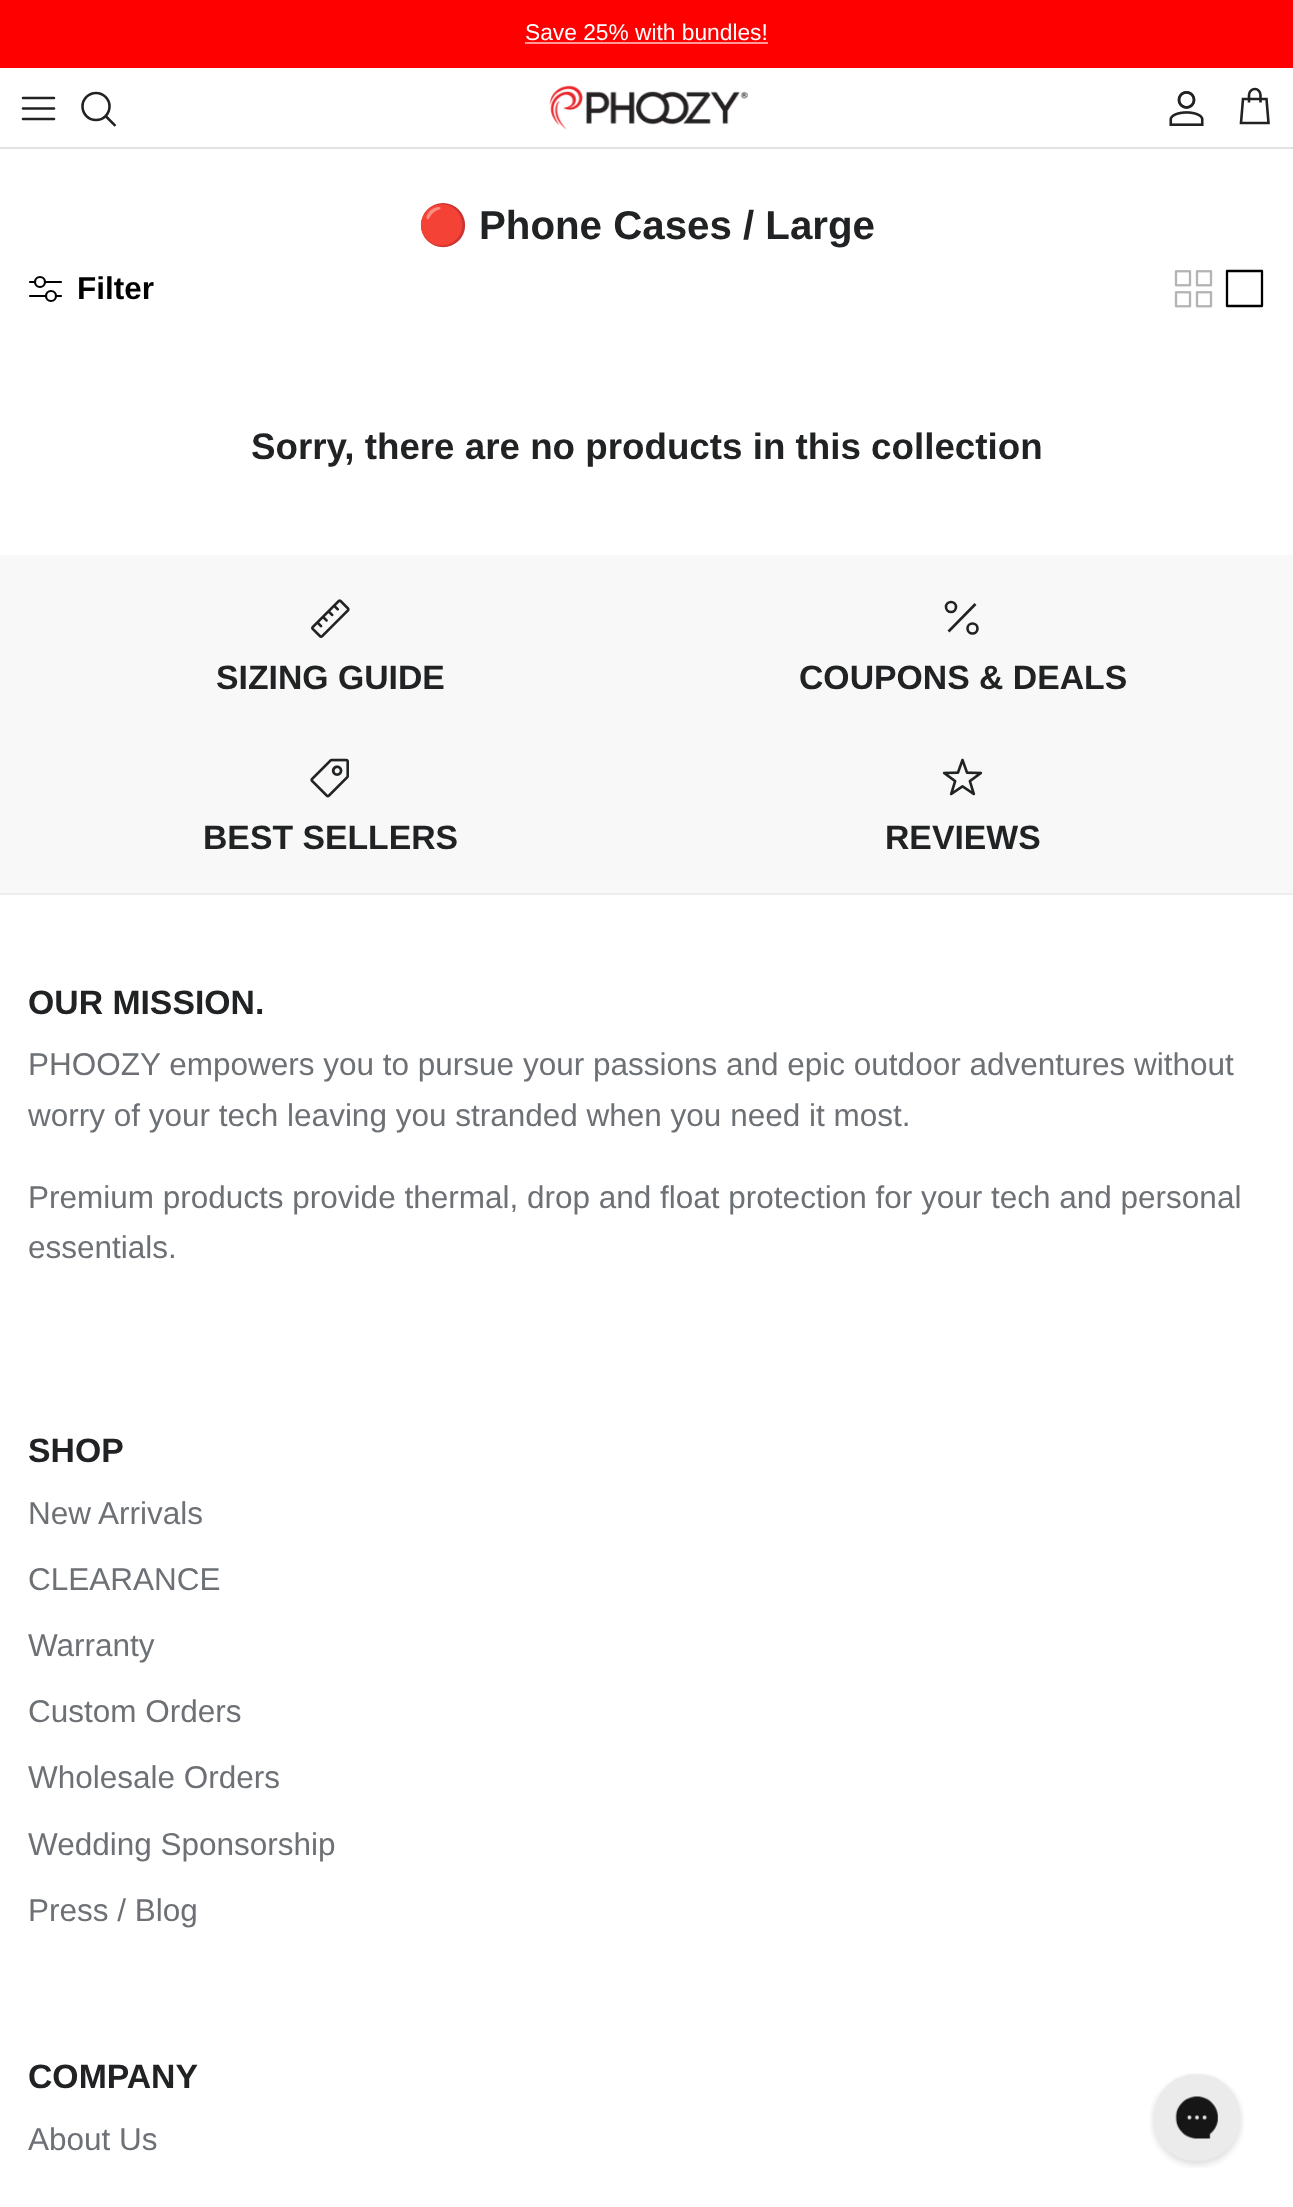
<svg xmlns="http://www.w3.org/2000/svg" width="1293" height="2207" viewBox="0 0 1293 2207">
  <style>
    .t1 { font: 22.75px Liberation Sans; fill: #fff; }
    .t2 { font: bold 40.25px Noto Color Emoji; fill: #202223; }
    .t3 { font: bold 40.25px Liberation Sans; fill: #202223; }
    .t4 { font: bold 31.5px Liberation Sans; fill: #000; }
    .t5 { font: bold 36.75px Liberation Sans; fill: #202223; }
    .t6 { font: bold 33.75px Liberation Sans; fill: #202223; }
    .t7 { font: 31.5px Liberation Sans; fill: #6d7175; }
  </style>
  <rect width="100%" height="100%" fill="#fff"/>
  <rect x="0" y="0" width="1293" height="68" fill="#f00"/>
  <text x="525" y="40" class="t1">Save 25% with bundles!</text>
  <rect x="525" y="42" width="243" height="2" fill="#f99"/>
  <rect x="0" y="147" width="1293" height="2" fill="#e2e2e2"/>
  <path d="M23 108.5H54M23 98H54M23 119H54" fill="none" stroke="#202223" stroke-width="2.6" stroke-linecap="round" stroke-linejoin="round"/>
  <circle cx="96" cy="106.5" r="13.5" fill="none" stroke="#202223" stroke-width="2.6"/>
  <path d="M106.5 117L114.5 125" fill="none" stroke="#202223" stroke-width="2.6" stroke-linecap="square"/>
  <image x="549" y="85" width="199" height="45" href="images/1.png"/>
  <image x="1169" y="91" width="35" height="35" href="images/2.png"/>
  <path d="M1260.5 102.5V95C1260.5 92 1258 89 1255 89C1251.5 89 1249 92 1249 95V102.5M1243 99H1266.5L1268.5 123H1241Z" fill="none" stroke="#202223" stroke-width="2.6"/>
  <text x="418" y="239" class="t2">🔴</text>
  <text x="479" y="239" class="t3">Phone Cases / Large</text>
  <path d="M30 282H61M30 296H61" fill="none" stroke="#000" stroke-width="2.2" stroke-linecap="round" stroke-linejoin="round"/>
  <circle cx="40" cy="282" r="5" fill="#fff" stroke="#000" stroke-width="2.2"/>
  <circle cx="51" cy="296" r="5" fill="#fff" stroke="#000" stroke-width="2.2"/>
  <text x="77" y="299" class="t4">Filter</text>
  <image x="1174" y="270" width="39" height="38" href="images/3.png"/>
  <path d="M1227 271H1262V306H1227V271" fill="none" stroke="#000" stroke-width="2.3" stroke-linecap="round" stroke-linejoin="round"/>
  <text x="251" y="459" class="t5">Sorry, there are no products in this collection</text>
  <rect x="0" y="555" width="1293" height="338" fill="#f8f8f8"/>
  <image x="311" y="599" width="39" height="39" href="images/4.png"/>
  <text x="216" y="689" class="t6">SIZING GUIDE</text>
  <path d="M975.5 604L948.5 631.5" fill="none" stroke="#202223" stroke-width="2.6"/>
  <circle cx="951" cy="607" r="5" fill="none" stroke="#202223" stroke-width="2.6"/>
  <circle cx="972.5" cy="628.5" r="5" fill="none" stroke="#202223" stroke-width="2.6"/>
  <text x="799" y="689" class="t6">COUPONS &amp; DEALS</text>
  <image x="310" y="758" width="39" height="40" href="images/5.png"/>
  <text x="203" y="849" class="t6">BEST SELLERS</text>
  <image x="942" y="758" width="41" height="38" href="images/6.png"/>
  <text x="885" y="849" class="t6">REVIEWS</text>
  <rect x="0" y="893" width="1293" height="2" fill="#eee"/>
  <text x="28" y="1014" class="t6">OUR MISSION.</text>
  <text x="28" y="1075" class="t7">PHOOZY empowers you to pursue your passions and epic outdoor adventures without</text>
  <text x="28" y="1126" class="t7">worry of your tech leaving you stranded when you need it most.</text>
  <text x="28" y="1208" class="t7">Premium products provide thermal, drop and float protection for your tech and personal</text>
  <text x="28" y="1258" class="t7">essentials.</text>
  <text x="28" y="1462" class="t6">SHOP</text>
  <text x="28" y="1524" class="t7">New Arrivals</text>
  <text x="28" y="1590" class="t7">CLEARANCE</text>
  <text x="28" y="1656" class="t7">Warranty</text>
  <text x="28" y="1722" class="t7">Custom Orders</text>
  <text x="28" y="1788" class="t7">Wholesale Orders</text>
  <text x="28" y="1855" class="t7">Wedding Sponsorship</text>
  <text x="28" y="1921" class="t7">Press / Blog</text>
  <text x="28" y="2088" class="t6">COMPANY</text>
  <text x="28" y="2150" class="t7">About Us</text>
  <image x="1150" y="2073" width="94" height="95" href="images/7.png"/>
</svg>
